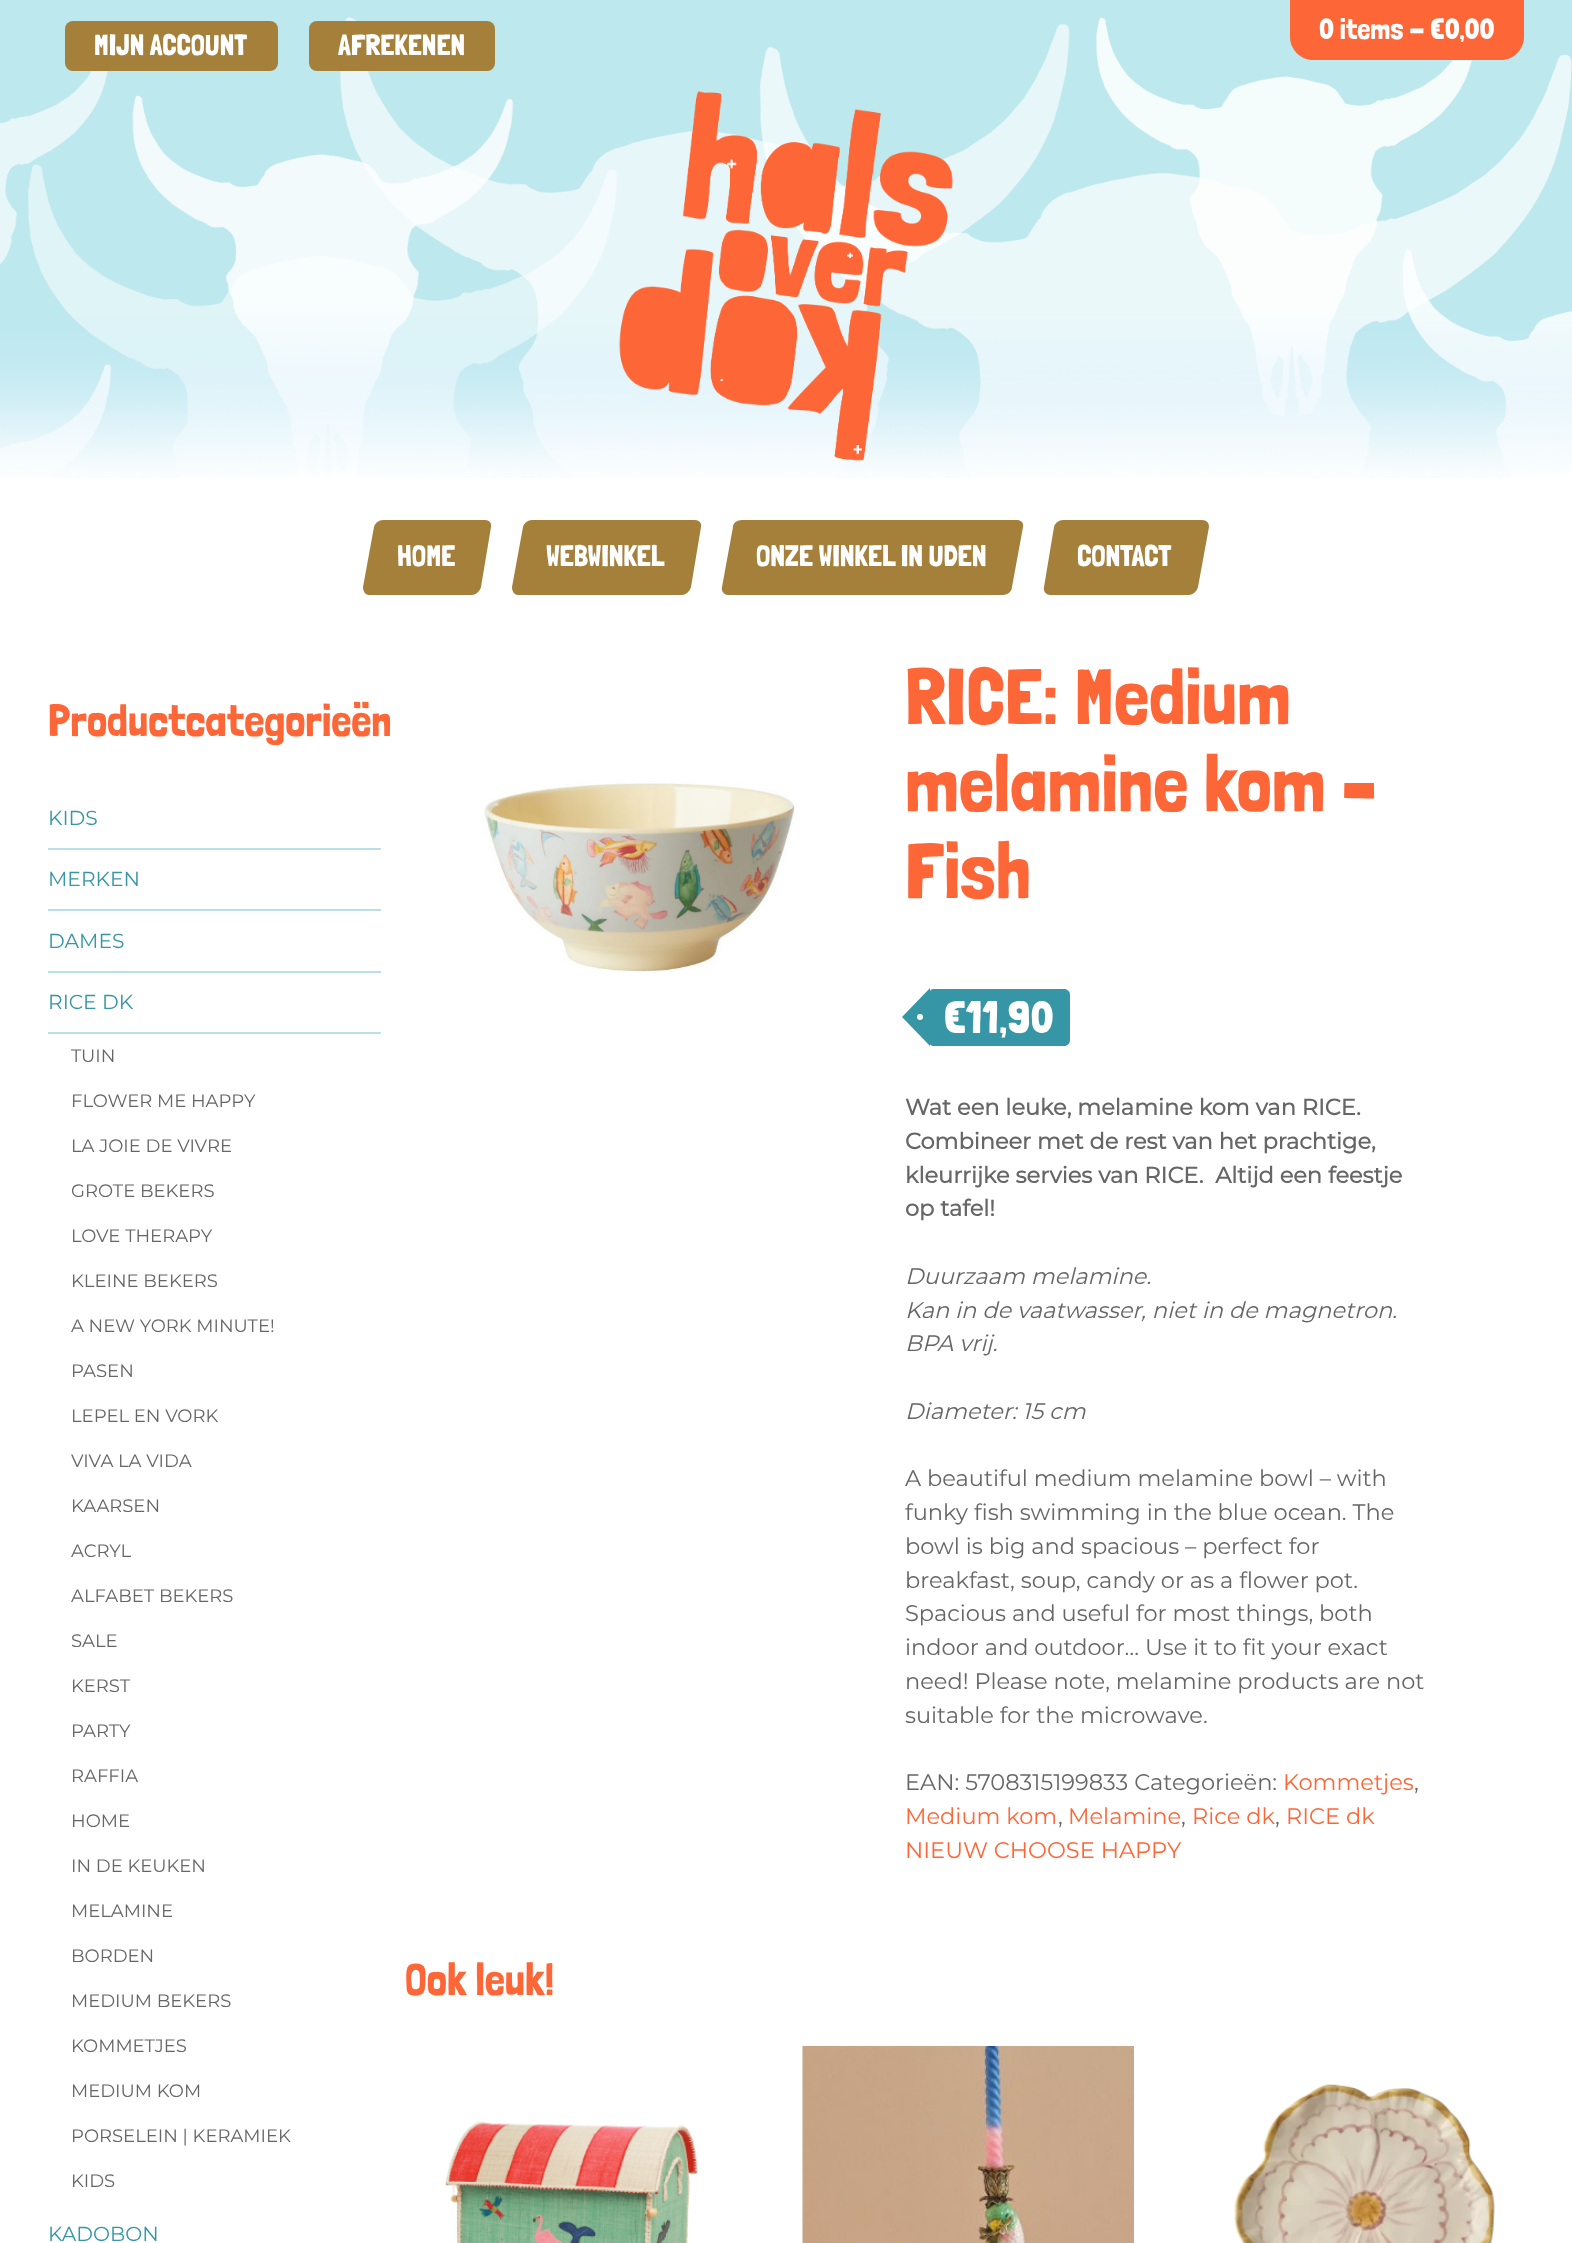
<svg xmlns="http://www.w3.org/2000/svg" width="1572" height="2243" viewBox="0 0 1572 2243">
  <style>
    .t1 { font: 29.25px Londrina Solid; fill: #fff; }
    .t2 { font: 29.75px Londrina Solid; fill: #fff; }
    .t3 { font: 29.75px Londrina Solid; letter-spacing: -0.25px; fill: #fff; }
    .t4 { font: 29.75px Londrina Solid; letter-spacing: -0.2px; fill: #fff; }
    .t5 { font: 45px Londrina Solid; fill: #fd6738; }
    .t6 { font: 100 20.25px Montserrat; fill: #3696a5; }
    .t7 { font: 100 18px Montserrat; fill: #666; }
    .t8 { font: 78.75px Londrina Solid; fill: #fd6738; }
    .t9 { font: 45px Londrina Solid; fill: #fff; }
    .t10 { font: bold 22.5px Montserrat; fill: #666; }
    .t11 { font: italic 100 22.5px Montserrat; fill: #666; }
    .t12 { font: 100 22.5px Montserrat; fill: #666; }
    .t13 { font: 100 22.5px Montserrat; fill: #fd6738; }
  </style>
  <rect width="100%" height="100%" fill="#fff"/>
  <image x="0" y="0" width="1572" height="478" href="images/1.png"/>
  <path d="M1290 0H1524V37C1524 49.5 1513.5 60 1501 60H1313C1300.5 60 1290 49.5 1290 37Z" fill="#fd6738"/>
  <text x="1319" y="39" class="t1">0 items - €0,00</text>
  <rect x="65" y="21" width="213" height="50" rx="8" fill="#a4803b"/>
  <text x="94" y="55" class="t1">MIJN ACCOUNT</text>
  <rect x="309" y="21" width="186" height="50" rx="8" fill="#a4803b"/>
  <text x="338" y="55" class="t1">AFREKENEN</text>
  <image x="619" y="91" width="334" height="370" href="images/2.png"/>
  <image x="720" y="159" width="142" height="296" href="images/3.png"/>
  <path d="M383 520H485C489 520 492 523 491 527L481 587C480 591 476 595 472 595H369C365 595 363 591 363 587L374 527C375 523 379 520 383 520Z" fill="#a4803b"/>
  <text x="397" y="566" class="t2">HOME</text>
  <path d="M532 520H695C699 520 702 523 701 527L691 587C690 591 686 595 682 595H518C514 595 512 591 512 587L523 527C524 523 528 520 532 520Z" fill="#a4803b"/>
  <text x="546" y="566" class="t3">WEBWINKEL</text>
  <path d="M742 520H1017C1021 520 1024 523 1023 527L1012 587C1012 591 1008 595 1003 595H728C724 595 721 591 722 587L733 527C733 523 737 520 742 520Z" fill="#a4803b"/>
  <text x="756" y="566" class="t4">ONZE WINKEL IN UDEN</text>
  <path d="M1063 520H1202C1207 520 1209 523 1209 527L1198 587C1197 591 1193 595 1189 595H1050C1046 595 1043 591 1044 587L1054 527C1055 523 1059 520 1063 520Z" fill="#a4803b"/>
  <text x="1077" y="566" class="t3">CONTACT</text>
  <text x="48" y="736" class="t5">Productcategorieën</text>
  <rect x="48" y="848" width="333" height="2" fill="#bae0e6"/>
  <text x="48" y="825" class="t6">KIDS</text>
  <rect x="48" y="909" width="333" height="2" fill="#bae0e6"/>
  <text x="48" y="886" class="t6">MERKEN</text>
  <rect x="48" y="971" width="333" height="2" fill="#bae0e6"/>
  <text x="48" y="948" class="t6">DAMES</text>
  <rect x="48" y="1032" width="333" height="2" fill="#bae0e6"/>
  <text x="48" y="1009" class="t6">RICE DK</text>
  <text x="71" y="1062" class="t7">TUIN</text>
  <text x="71" y="1107" class="t7">FLOWER ME HAPPY</text>
  <text x="71" y="1152" class="t7">LA JOIE DE VIVRE</text>
  <text x="71" y="1197" class="t7">GROTE BEKERS</text>
  <text x="71" y="1242" class="t7">LOVE THERAPY</text>
  <text x="71" y="1287" class="t7">KLEINE BEKERS</text>
  <text x="71" y="1332" class="t7">A NEW YORK MINUTE!</text>
  <text x="71" y="1377" class="t7">PASEN</text>
  <text x="71" y="1422" class="t7">LEPEL EN VORK</text>
  <text x="71" y="1467" class="t7">VIVA LA VIDA</text>
  <text x="71" y="1512" class="t7">KAARSEN</text>
  <text x="71" y="1557" class="t7">ACRYL</text>
  <text x="71" y="1602" class="t7">ALFABET BEKERS</text>
  <text x="71" y="1647" class="t7">SALE</text>
  <text x="71" y="1692" class="t7">KERST</text>
  <text x="71" y="1737" class="t7">PARTY</text>
  <text x="71" y="1782" class="t7">RAFFIA</text>
  <text x="71" y="1827" class="t7">HOME</text>
  <text x="71" y="1872" class="t7">IN DE KEUKEN</text>
  <text x="71" y="1917" class="t7">MELAMINE</text>
  <text x="71" y="1962" class="t7">BORDEN</text>
  <text x="71" y="2007" class="t7">MEDIUM BEKERS</text>
  <text x="71" y="2052" class="t7">KOMMETJES</text>
  <text x="71" y="2097" class="t7">MEDIUM KOM</text>
  <text x="71" y="2142" class="t7">PORSELEIN | KERAMIEK</text>
  <text x="71" y="2187" class="t7">KIDS</text>
  <text x="48" y="2241" class="t6">KADOBON</text>
  <image x="483" y="779" width="312" height="194" href="images/4.png"/>
  <text x="905" y="724" class="t8">RICE: Medium</text>
  <text x="905" y="811" class="t8">melamine kom –</text>
  <text x="905" y="898" class="t8">Fish</text>
  <path d="M934 989H1064C1067.5 989 1070 991.5 1070 995V1040C1070 1043.5 1067.5 1046 1064 1046H934C931 1046 929 1044 929 1041V994C929 991 931 989 934 989Z" fill="#3696a5"/>
  <path d="M930 988V1046L902 1017Z" fill="#3696a5"/>
  <text x="944" y="1033" class="t9">€11,90</text>
  <circle cx="920" cy="1017" r="3" fill="#fff"/>
  <text x="905" y="1115" class="t10">Wat een leuke, melamine kom van RICE.</text>
  <text x="905" y="1149" class="t10">Combineer met de rest van het prachtige,</text>
  <text x="905" y="1183" class="t10" xml:space="preserve">kleurrijke servies van RICE.  Altijd een feestje</text>
  <text x="905" y="1216" class="t10">op tafel!</text>
  <text x="905" y="1284" class="t11">Duurzaam melamine.</text>
  <text x="905" y="1318" class="t11">Kan in de vaatwasser, niet in de magnetron.</text>
  <text x="905" y="1351" class="t11">BPA vrij.</text>
  <text x="905" y="1419" class="t11">Diameter: 15 cm</text>
  <text x="905" y="1486" class="t12">A beautiful medium melamine bowl – with</text>
  <text x="905" y="1520" class="t12">funky fish swimming in the blue ocean. The</text>
  <text x="905" y="1554" class="t12">bowl is big and spacious – perfect for</text>
  <text x="905" y="1588" class="t12">breakfast, soup, candy or as a flower pot.</text>
  <text x="905" y="1621" class="t12">Spacious and useful for most things, both</text>
  <text x="905" y="1655" class="t12">indoor and outdoor… Use it to fit your exact</text>
  <text x="905" y="1689" class="t12">need! Please note, melamine products are not</text>
  <text x="905" y="1723" class="t12">suitable for the microwave.</text>
  <text x="905" y="1790" class="t12">EAN: 5708315199833 Categorieën:</text>
  <text x="1283" y="1790" class="t13">Kommetjes</text>
  <text x="1414" y="1790" class="t12">,</text>
  <text x="905" y="1824" class="t13">Medium kom</text>
  <text x="1058" y="1824" class="t12">,</text>
  <text x="1068" y="1824" class="t13">Melamine</text>
  <text x="1181" y="1824" class="t12">,</text>
  <text x="1192" y="1824" class="t13">Rice dk</text>
  <text x="1275" y="1824" class="t12">,</text>
  <text x="1286" y="1824" class="t13">RICE dk</text>
  <text x="905" y="1858" class="t13">NIEUW CHOOSE HAPPY</text>
  <text x="405" y="1995" class="t5">Ook leuk!</text>
  <image x="445" y="2121" width="253" height="122" href="images/5.png"/>
  <image x="802" y="2046" width="332" height="197" href="images/6.png"/>
  <image x="1234" y="2084" width="261" height="159" href="images/7.png"/>
</svg>
